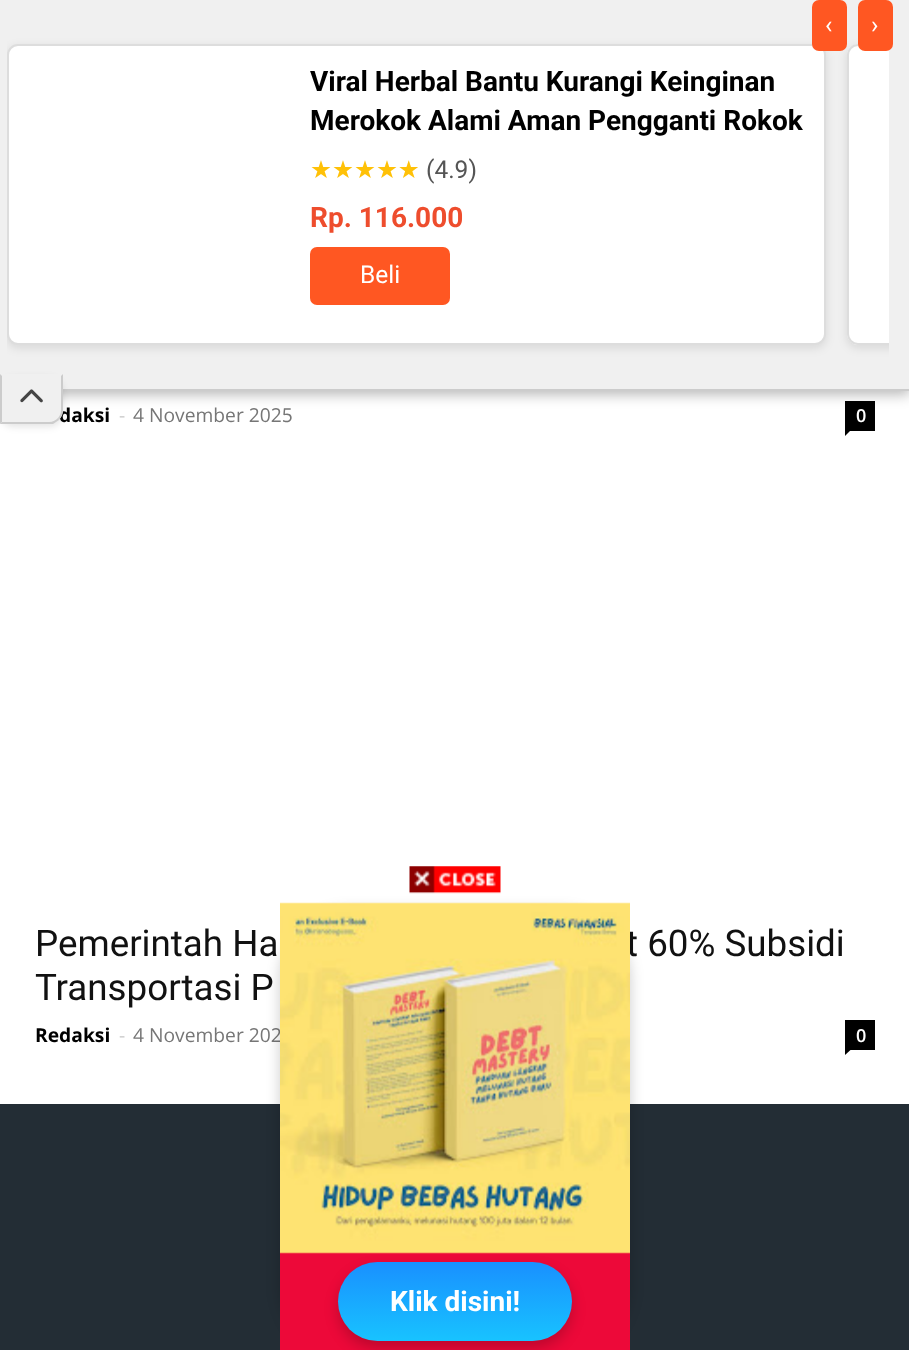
<svg xmlns="http://www.w3.org/2000/svg" width="909" height="1350" viewBox="0 0 909 1350">
  <style>
    .t1 { font: 24.5px Roboto; fill: #fff; }
    .t2 { font: bold 28px Roboto; fill: #000; }
    .t3 { font: 24.5px DejaVu Sans; fill: #ffc107; }
    .t4 { font: 24.5px Roboto; fill: #555; }
    .t5 { font: bold 28px Roboto; fill: #ee4d2d; }
    .t6 { font: bold 19.25px Open Sans; fill: #000; }
    .t7 { font: 19.25px Open Sans; fill: #ccc; }
    .t8 { font: 19.25px Open Sans; fill: #767676; }
    .t9 { font: 600 18px Open Sans; fill: #fff; }
    .t10 { font: 36.75px Roboto; fill: #111; }
    .t11 { font: bold 28px Roboto; fill: #fff; }
  </style>
  <defs>
    <clipPath id="clip1"><rect x="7" y="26" width="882" height="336"/></clipPath>
    <clipPath id="clip2"><rect x="7" y="26" width="882" height="336"/></clipPath>
    <linearGradient id="g1" gradientUnits="userSpaceOnUse" x1="455" y1="1262" x2="455" y2="1341"><stop offset="0" stop-color="#1990ff"/><stop offset="1" stop-color="#18c3ff"/></linearGradient>
  </defs>
  <rect width="100%" height="100%" fill="#fff"/>
  <rect x="845" y="401" width="30" height="30" fill="#000"/>
  <rect x="0" y="4" width="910" height="390" fill="#0000004d" filter="blur(7px)"/>
  <rect x="0" y="0" width="909" height="389" fill="#f0f0f0"/>
  <rect x="63" y="389" width="846" height="2" fill="#ccc"/>
  <g clip-path="url(#clip1)">
    <rect x="7" y="47" width="819" height="301" rx="11" fill="#0000001a" filter="blur(5px)"/>
  </g>
  <rect x="8" y="45" width="817" height="299" rx="10" fill="#fff" stroke="#ddd" stroke-width="2"/>
  <g clip-path="url(#clip1)">
    <rect x="847" y="47" width="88" height="301" rx="11" fill="#0000001a" filter="blur(5px)"/>
  </g>
  <rect x="812" y="0" width="35" height="51" rx="7" fill="#ff5722"/>
  <text x="825" y="33" class="t1">‹</text>
  <path d="M858 44H889V345H858C852 345 847 340 847 334V55C847 49 852 44 858 44Z" fill="#fff"/>
  <g clip-path="url(#clip2)">
    <rect x="848" y="45" width="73" height="299" rx="10" fill="none" stroke="#ddd" stroke-width="2"/>
  </g>
  <rect x="858" y="0" width="35" height="51" rx="7" fill="#ff5722"/>
  <text x="871" y="33" class="t1">›</text>
  <text x="310" y="91" class="t2">Viral Herbal Bantu Kurangi Keinginan</text>
  <text x="310" y="130" class="t2">Merokok Alami Aman Pengganti Rokok</text>
  <text x="310" y="178" class="t3">★★★★★</text>
  <text x="426" y="178" class="t4">(4.9)</text>
  <text x="310" y="227" class="t5">Rp. 116.000</text>
  <rect x="310" y="247" width="140" height="58" rx="7" fill="#ff5722"/>
  <text x="360" y="283" class="t1">Beli</text>
  <rect x="0" y="378" width="63" height="49" rx="14" fill="#0000001a" filter="blur(3.5px)"/>
  <text x="59" y="422" class="t6">daksi</text>
  <path d="M0 375H63V410C63 417.5 56.5 424 49 424H0Z" fill="#f0f0f0"/>
  <path d="M2 376H61L63 374H0Z" fill="#f0f0f0"/>
  <path d="M63 374L61 376V410C61 413 60 416 58 418L59 420C62 417 63 413 63 410Z" fill="#ccc"/>
  <path d="M53 424H0L2 422H49C53 422 56 420 58 418L59 420C57 421 55 423 53 424Z" fill="#ccc"/>
  <path d="M0 424L2 422V376L0 374Z" fill="#ccc"/>
  <image x="20" y="389" width="23" height="14" href="images/1.png"/>
  <text x="119" y="422" class="t7">-</text>
  <text x="133" y="422" class="t8">4 November 2025</text>
  <text x="856" y="422" class="t9">0</text>
  <path d="M845 430.5H850.5L845 436Z" fill="#000"/>
  <text x="35" y="956" class="t10">Pemerintah Ha</text>
  <text x="626" y="956" class="t10">t 60% Subsidi</text>
  <text x="35" y="1000" class="t10">Transportasi P</text>
  <text x="35" y="1042" class="t6">Redaksi</text>
  <text x="119" y="1042" class="t7">-</text>
  <text x="133" y="1042" class="t8">4 November 202</text>
  <rect x="845" y="1020" width="30" height="30" fill="#000"/>
  <text x="856" y="1042" class="t9">0</text>
  <path d="M845 1050H850.5L845 1055Z" fill="#000"/>
  <rect x="0" y="1104" width="909" height="246" fill="#232d35"/>
  <image x="409" y="866" width="92" height="28" href="images/2.png"/>
  <rect x="280" y="910" width="350" height="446" rx="70" fill="#00000033" filter="blur(7px)"/>
  <rect x="280" y="1252" width="350" height="98" fill="#ed0939"/>
  <image x="280" y="902" width="350" height="352" href="images/3.png"/>
  <rect x="338" y="1269" width="234" height="79" rx="39.5" fill="#00000033" filter="blur(7px)"/>
  <rect x="338" y="1262" width="234" height="79" rx="39.5" fill="url(#g1)"/>
  <text x="390" y="1311" class="t11">Klik disini!</text>
</svg>
